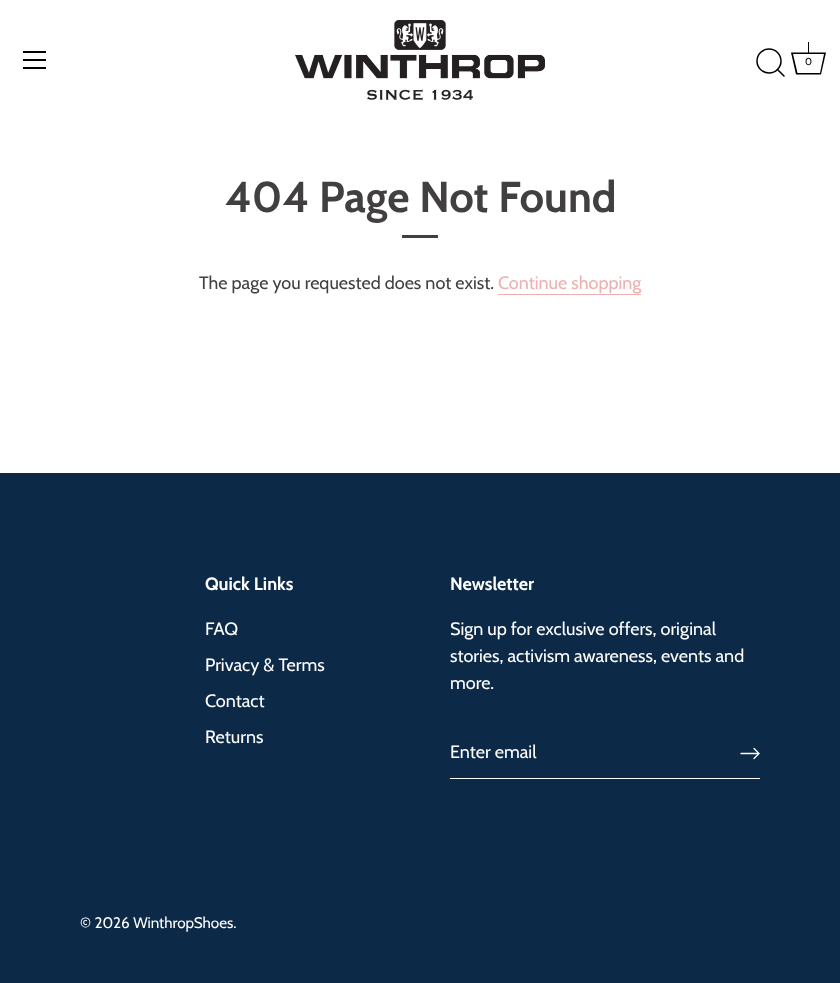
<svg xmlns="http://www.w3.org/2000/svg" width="840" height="983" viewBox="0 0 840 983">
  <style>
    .t1 { font: 10px Cabin; fill: #000; }
    .t2 { font: bold 43.25px Cabin; fill: #413f3f; }
    .t3 { font: 18px Cabin; fill: #413f3f; }
    .t4 { font: 18px Cabin; fill: #ecb1b0; }
    .t5 { font: bold 18px Cabin; fill: #fff; }
    .t6 { font: 18px Cabin; fill: #fff; }
    .t7 { font: 15.25px Cabin; fill: #fff; }
  </style>
  <rect width="100%" height="100%" fill="#fff"/>
  <rect x="23" y="51" width="23" height="2" fill="#000"/>
  <rect x="23" y="59" width="23" height="2" fill="#000"/>
  <rect x="23" y="67" width="23" height="2" fill="#000"/>
  <image x="295" y="20" width="250" height="80" href="images/1.png"/>
  <circle cx="769" cy="61" r="12" fill="none" stroke="#000" stroke-width="1.5"/>
  <path d="M784 76L777.5 69.5" fill="none" stroke="#000" stroke-width="1.5" stroke-linecap="round" stroke-linejoin="round"/>
  <path d="M824 54L820 73H797.5L793 54H824M826 52.5H791L796 74.5H821Z" fill="#000"/>
  <rect x="808" y="42" width="1" height="11" fill="#000"/>
  <text x="805" y="65" class="t1">0</text>
  <text x="225" y="212" class="t2">404 Page Not Found</text>
  <rect x="402" y="235" width="36" height="3" fill="#413f3f"/>
  <text x="199" y="289" class="t3">The page you requested does not exist.</text>
  <text x="498" y="289" class="t4">Continue shopping</text>
  <rect x="498" y="294" width="143" height="1" fill="#ecb1b0"/>
  <rect x="0" y="473" width="840" height="510" fill="#0d2948"/>
  <text x="205" y="590" class="t5">Quick Links</text>
  <text x="205" y="635" class="t6">FAQ</text>
  <text x="205" y="671" class="t6">Privacy &amp; Terms</text>
  <text x="205" y="707" class="t6">Contact</text>
  <text x="205" y="743" class="t6">Returns</text>
  <text x="450" y="590" class="t5">Newsletter</text>
  <text x="450" y="635" class="t6">Sign up for exclusive offers, original</text>
  <text x="450" y="662" class="t6">stories, activism awareness, events and</text>
  <text x="450" y="689" class="t6">more.</text>
  <rect x="450" y="778" width="310" height="1" fill="#fff"/>
  <text x="450" y="758" class="t6">Enter email</text>
  <path d="M754 758.5L759 753.5L754 748.5" fill="none" stroke="#fff" stroke-width="1.3" stroke-linecap="round"/>
  <path d="M758 753.5H741" fill="none" stroke="#fff" stroke-width="1.3" stroke-linecap="round" stroke-linejoin="round"/>
  <text x="80" y="928" class="t7">© 2026 WinthropShoes.</text>
</svg>
